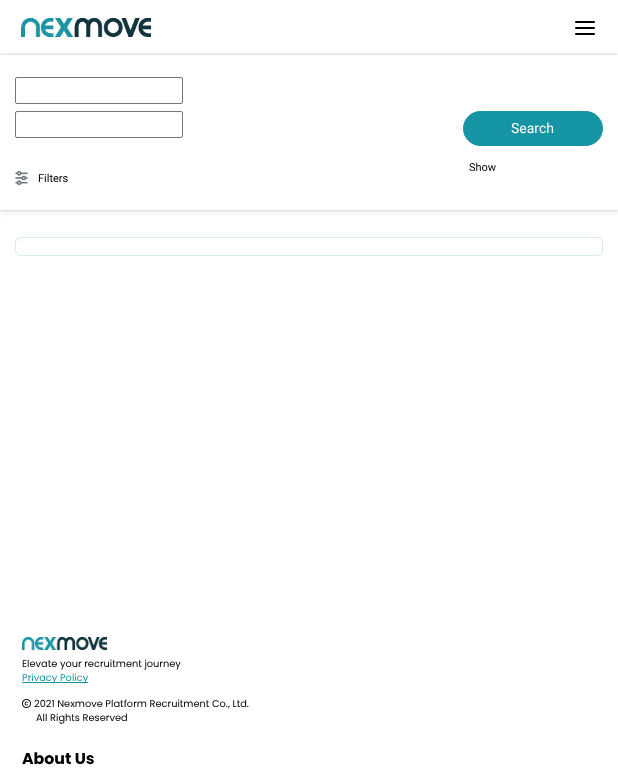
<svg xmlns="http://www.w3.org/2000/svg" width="618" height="777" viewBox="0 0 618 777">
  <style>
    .t1 { font: 14px Roboto; fill: #fff; }
    .t2 { font: 11px Roboto; fill: #000; }
    .t3 { font: 9.8px Poppins; fill: #000; }
    .t4 { font: 9.8px Poppins; fill: #1594a3; }
    .t5 { font: bold 15.75px Poppins; fill: #000; }
  </style>
  <defs>
    <clipPath id="clip1"><path d="M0 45H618V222H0ZM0 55H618V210H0Z" clip-rule="evenodd"/></clipPath>
    <clipPath id="clip2"><path d="M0 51H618V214H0ZM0 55H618V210H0Z" clip-rule="evenodd"/></clipPath>
  </defs>
  <rect width="100%" height="100%" fill="#fff"/>
  <image x="21" y="18" width="130" height="19" href="images/1.png"/>
  <path d="M576 28H594M576 22H594M576 34H594" fill="none" stroke="#000" stroke-width="2" stroke-linecap="round" stroke-linejoin="round"/>
  <g clip-path="url(#clip1)">
    <rect x="-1" y="55" width="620" height="157" fill="#3c40431a" filter="blur(3px)"/>
  </g>
  <g clip-path="url(#clip2)">
    <rect x="0" y="55" width="618" height="155" fill="#3838384d" filter="blur(1px)"/>
  </g>
  <rect x="15.5" y="77.5" width="167" height="26" rx="1.5" fill="none" stroke="#767676"/>
  <rect x="15.5" y="111.5" width="167" height="26" rx="1.5" fill="none" stroke="#767676"/>
  <rect x="463.5" y="111.5" width="139" height="34" rx="17" fill="#1594a3" stroke="#1594a3"/>
  <text x="511" y="133" class="t1">Search</text>
  <text x="469" y="171" class="t2">Show</text>
  <image x="15" y="171" width="13" height="14" href="images/2.png"/>
  <text x="38" y="182" class="t2">Filters</text>
  <rect x="15.5" y="237.5" width="587" height="18" rx="5.5" fill="none" stroke="#d5ebee"/>
  <image x="22" y="637" width="85" height="13" href="images/3.png"/>
  <text x="22" y="667" class="t3">Elevate your recruitment journey</text>
  <rect x="22" y="682" width="66" height="1" fill="#1594a3"/>
  <text x="22" y="681" class="t4">Privacy Policy</text>
  <image x="22" y="699" width="9" height="9" href="images/4.png"/>
  <text x="34" y="707" class="t3">2021 Nexmove Platform Recruitment Co., Ltd.</text>
  <text x="36" y="721" class="t3">All Rights Reserved</text>
  <text x="22" y="764" class="t5">About Us</text>
</svg>
